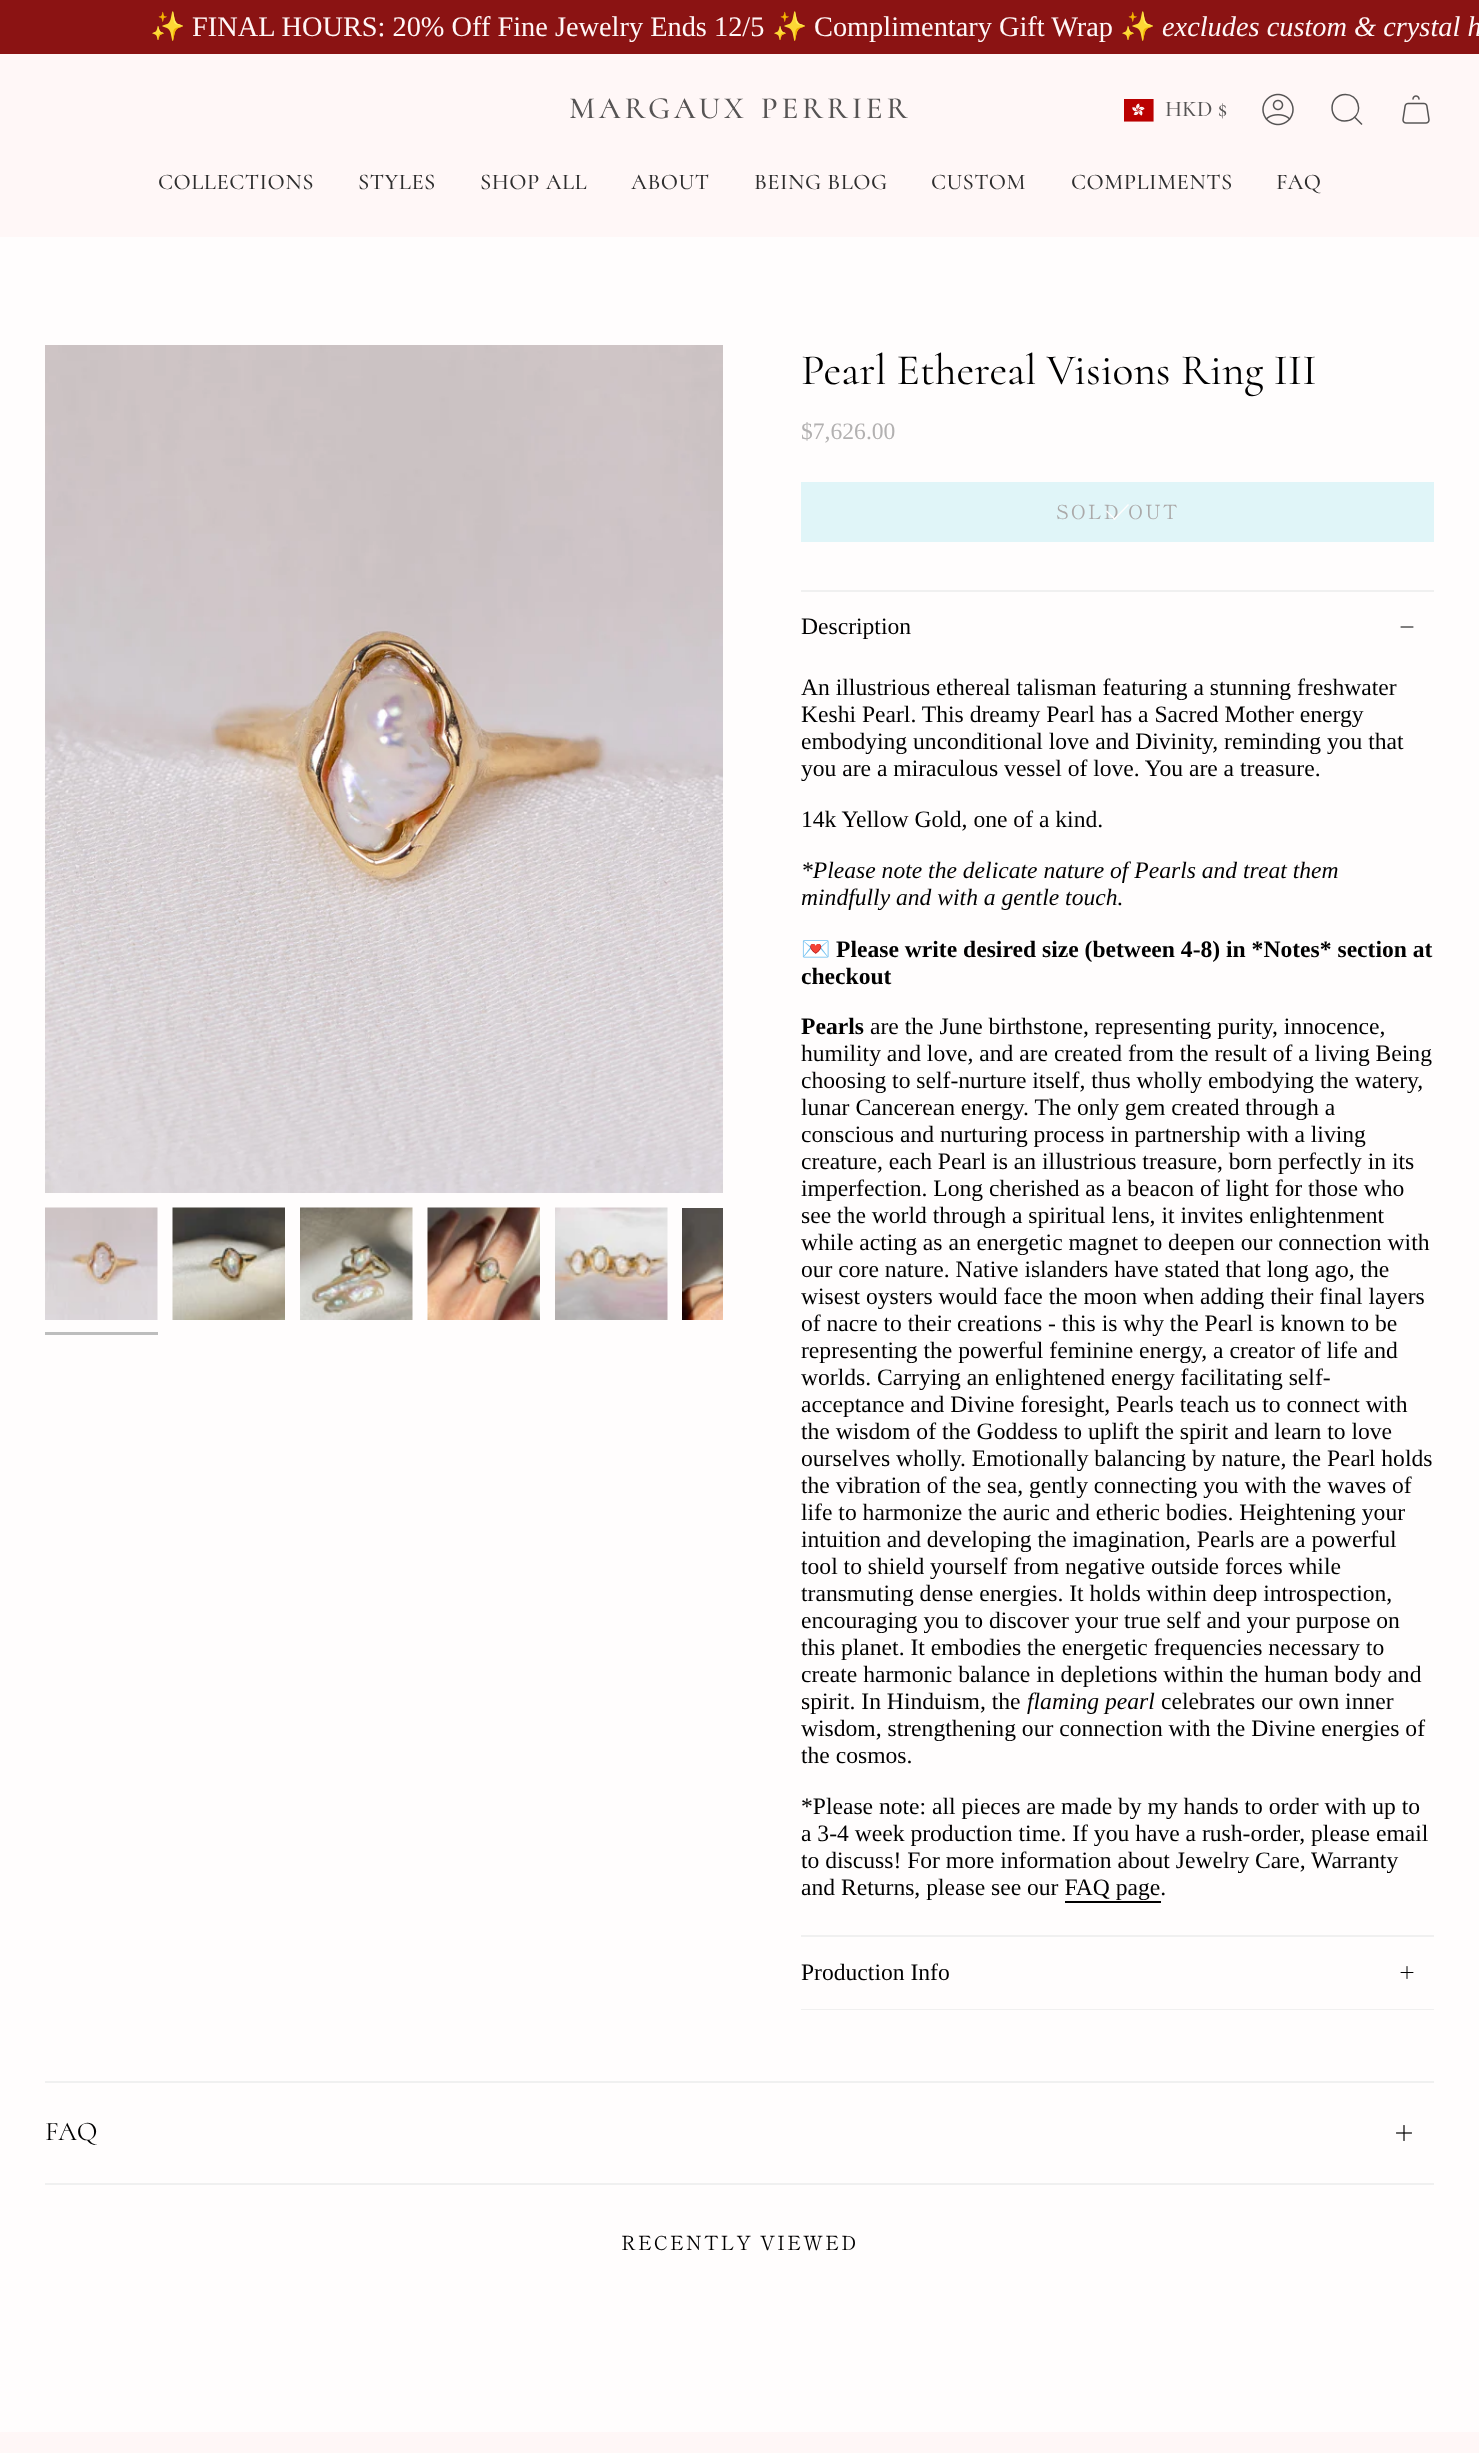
<svg xmlns="http://www.w3.org/2000/svg" width="1479" height="2453" viewBox="0 0 1479 2453">
  <style>
    .t1 { font: 28.35px Noto Color Emoji; fill: #fff7f7; }
    .t2 { font: 28.35px Liberation Serif; fill: #fff7f7; }
    .t3 { font: italic 28.35px Liberation Serif; fill: #fff7f7; }
    .t4 { font: 500 31px Cormorant; letter-spacing: 3.75px; fill: #565454; }
    .t5 { font: 500 22.5px Cormorant; fill: #565454; }
    .t6 { font: 500 22.5px Cormorant; letter-spacing: 0.5px; fill: #2e2e2e; }
    .t7 { font: 43.5px Cormorant; fill: #000; }
    .t8 { font: 23.6px Liberation Serif; fill: #b3b1b1; }
    .t9 { font: 19.5px Shippori Mincho; letter-spacing: 2px; fill: #aba9a9; }
    .t10 { font: 23.6px Liberation Serif; fill: #000; }
    .t11 { font: italic 23.6px Liberation Serif; fill: #000; }
    .t12 { font: bold 23.6px Noto Color Emoji; fill: #000; }
    .t13 { font: bold 23.6px Liberation Serif; fill: #000; }
    .t14 { font: 27px Cormorant; fill: #000; }
    .t15 { font: 19.5px Shippori Mincho; letter-spacing: 2px; fill: #000; }
  </style>
  <rect width="100%" height="100%" fill="#fffdfd"/>
  <rect x="0" y="0" width="1479" height="54" fill="#8b1313"/>
  <text x="150" y="36" class="t1">✨</text>
  <text x="192" y="36" class="t2">FINAL HOURS: 20% Off Fine Jewelry Ends 12/5</text>
  <text x="772" y="36" class="t1">✨</text>
  <text x="814" y="36" class="t2">Complimentary Gift Wrap</text>
  <text x="1120" y="36" class="t1">✨</text>
  <text x="1162" y="36" class="t3">excludes custom &amp; crystal h</text>
  <rect x="0" y="54" width="1479" height="183" fill="#fff7f7"/>
  <text x="569" y="118" word-spacing="2" class="t4">MARGAUX PERRIER</text>
  <image x="1124" y="99" width="30" height="23" href="images/1.png"/>
  <text x="1165" y="116" class="t5">HKD $</text>
  <image x="1262" y="93" width="32" height="33" href="images/2.png"/>
  <path d="M1345.5 94.5C1358 94.5 1363.5 111 1353 118.5C1350.5 120.5 1347.5 121 1344.5 121C1327.5 120.5 1328 94.5 1345.5 94.5ZM1354.5 117L1362 124.5" fill="none" stroke="#565454" stroke-width="1.5"/>
  <image x="1402" y="95" width="28" height="29" href="images/3.png"/>
  <text x="158" y="189" class="t6">COLLECTIONS</text>
  <text x="358" y="189" class="t6">STYLES</text>
  <text x="480" y="189" class="t6">SHOP ALL</text>
  <text x="631" y="189" class="t6">ABOUT</text>
  <text x="754" y="189" class="t6">BEING BLOG</text>
  <text x="931" y="189" class="t6">CUSTOM</text>
  <text x="1071" y="189" class="t6">COMPLIMENTS</text>
  <text x="1276" y="189" class="t6">FAQ</text>
  <image x="45" y="345" width="678" height="848" href="images/4.png"/>
  <image x="45" y="1207" width="113" height="113" href="images/5.png"/>
  <rect x="45" y="1332" width="113" height="3" fill="#bdbdbd"/>
  <image x="172" y="1207" width="113" height="113" href="images/6.png"/>
  <image x="300" y="1207" width="113" height="113" href="images/7.png"/>
  <image x="427" y="1207" width="113" height="113" href="images/8.png"/>
  <image x="555" y="1207" width="113" height="113" href="images/9.png"/>
  <image x="682" y="1208" width="41" height="112" href="images/10.png"/>
  <text x="801" y="384" class="t7">Pearl Ethereal Visions Ring III</text>
  <text x="801" y="439" class="t8">$7,626.00</text>
  <rect x="801" y="482" width="633" height="60" fill="#e0f5f8"/>
  <text x="1056" y="519" class="t9">SOLD OUT</text>
  <path d="M1113.5 519L1128 504L1129 505L1114.5 520Z" fill="#fffdfd"/>
  <path d="M1106 511.5L1107 510.5L1115.5 519L1114.5 520Z" fill="#fffdfd"/>
  <circle cx="1117.5" cy="511.5" r="10.5" fill="none" stroke="#fffdfd0d" stroke-width="1.5"/>
  <rect x="801" y="590" width="633" height="2" fill="#f0f0f0"/>
  <text x="801" y="634" class="t10">Description</text>
  <path d="M1401 627H1413" fill="none" stroke="#000" stroke-linecap="round" stroke-linejoin="round"/>
  <text x="801" y="695" class="t10">An illustrious ethereal talisman featuring a stunning freshwater</text>
  <text x="801" y="722" class="t10">Keshi Pearl. This dreamy Pearl has a Sacred Mother energy</text>
  <text x="801" y="749" class="t10">embodying unconditional love and Divinity, reminding you that</text>
  <text x="801" y="776" class="t10">you are a miraculous vessel of love. You are a treasure.</text>
  <text x="801" y="827" class="t10">14k Yellow Gold, one of a kind.</text>
  <text x="801" y="878" class="t11">*Please note the delicate nature of Pearls and treat them</text>
  <text x="801" y="905" class="t11">mindfully and with a gentle touch.</text>
  <text x="801" y="957" class="t12">💌</text>
  <text x="836" y="957" class="t13">Please write desired size (between 4-8) in *Notes* section at</text>
  <text x="801" y="984" class="t13">checkout</text>
  <text x="801" y="1034" class="t13">Pearls</text>
  <text x="870" y="1034" class="t10">are the June birthstone, representing purity, innocence,</text>
  <text x="801" y="1061" class="t10">humility and love, and are created from the result of a living Being</text>
  <text x="801" y="1088" class="t10">choosing to self-nurture itself, thus wholly embodying the watery,</text>
  <text x="801" y="1115" class="t10">lunar Cancerean energy. The only gem created through a</text>
  <text x="801" y="1142" class="t10">conscious and nurturing process in partnership with a living</text>
  <text x="801" y="1169" class="t10">creature, each Pearl is an illustrious treasure, born perfectly in its</text>
  <text x="801" y="1196" class="t10">imperfection. Long cherished as a beacon of light for those who</text>
  <text x="801" y="1223" class="t10">see the world through a spiritual lens, it invites enlightenment</text>
  <text x="801" y="1250" class="t10">while acting as an energetic magnet to deepen our connection with</text>
  <text x="801" y="1277" class="t10">our core nature. Native islanders have stated that long ago, the</text>
  <text x="801" y="1304" class="t10">wisest oysters would face the moon when adding their final layers</text>
  <text x="801" y="1331" class="t10">of nacre to their creations - this is why the Pearl is known to be</text>
  <text x="801" y="1358" class="t10">representing the powerful feminine energy, a creator of life and</text>
  <text x="801" y="1385" class="t10">worlds. Carrying an enlightened energy facilitating self-</text>
  <text x="801" y="1412" class="t10">acceptance and Divine foresight, Pearls teach us to connect with</text>
  <text x="801" y="1439" class="t10">the wisdom of the Goddess to uplift the spirit and learn to love</text>
  <text x="801" y="1466" class="t10">ourselves wholly. Emotionally balancing by nature, the Pearl holds</text>
  <text x="801" y="1493" class="t10">the vibration of the sea, gently connecting you with the waves of</text>
  <text x="801" y="1520" class="t10">life to harmonize the auric and etheric bodies. Heightening your</text>
  <text x="801" y="1547" class="t10">intuition and developing the imagination, Pearls are a powerful</text>
  <text x="801" y="1574" class="t10">tool to shield yourself from negative outside forces while</text>
  <text x="801" y="1601" class="t10">transmuting dense energies. It holds within deep introspection,</text>
  <text x="801" y="1628" class="t10">encouraging you to discover your true self and your purpose on</text>
  <text x="801" y="1655" class="t10">this planet. It embodies the energetic frequencies necessary to</text>
  <text x="801" y="1682" class="t10">create harmonic balance in depletions within the human body and</text>
  <text x="801" y="1709" class="t10">spirit. In Hinduism, the</text>
  <text x="1027" y="1709" class="t11">flaming pearl</text>
  <text x="1161" y="1709" class="t10">celebrates our own inner</text>
  <text x="801" y="1736" class="t10">wisdom, strengthening our connection with the Divine energies of</text>
  <text x="801" y="1763" class="t10">the cosmos.</text>
  <text x="801" y="1814" class="t10">*Please note: all pieces are made by my hands to order with up to</text>
  <text x="801" y="1841" class="t10">a 3-4 week production time. If you have a rush-order, please email</text>
  <text x="801" y="1868" class="t10">to discuss! For more information about Jewelry Care, Warranty</text>
  <text x="801" y="1895" class="t10">and Returns, please see our FAQ page.</text>
  <rect x="1065" y="1901" width="96" height="2" fill="#000"/>
  <rect x="801" y="1935" width="633" height="2" fill="#f0f0f0"/>
  <rect x="801" y="2009" width="633" height="1" fill="#f0f0f0"/>
  <text x="801" y="1980" class="t10">Production Info</text>
  <image x="1400" y="1966" width="14" height="13" href="images/11.png"/>
  <rect x="45" y="2081" width="1389" height="2" fill="#f0f0f0"/>
  <rect x="45" y="2183" width="1389" height="2" fill="#f0f0f0"/>
  <text x="45" y="2140" class="t14">FAQ</text>
  <image x="1396" y="2125" width="16" height="16" href="images/12.png"/>
  <text x="621" y="2250" class="t15">RECENTLY VIEWED</text>
  <rect x="0" y="2432" width="1479" height="21" fill="#fff7f7"/>
</svg>
